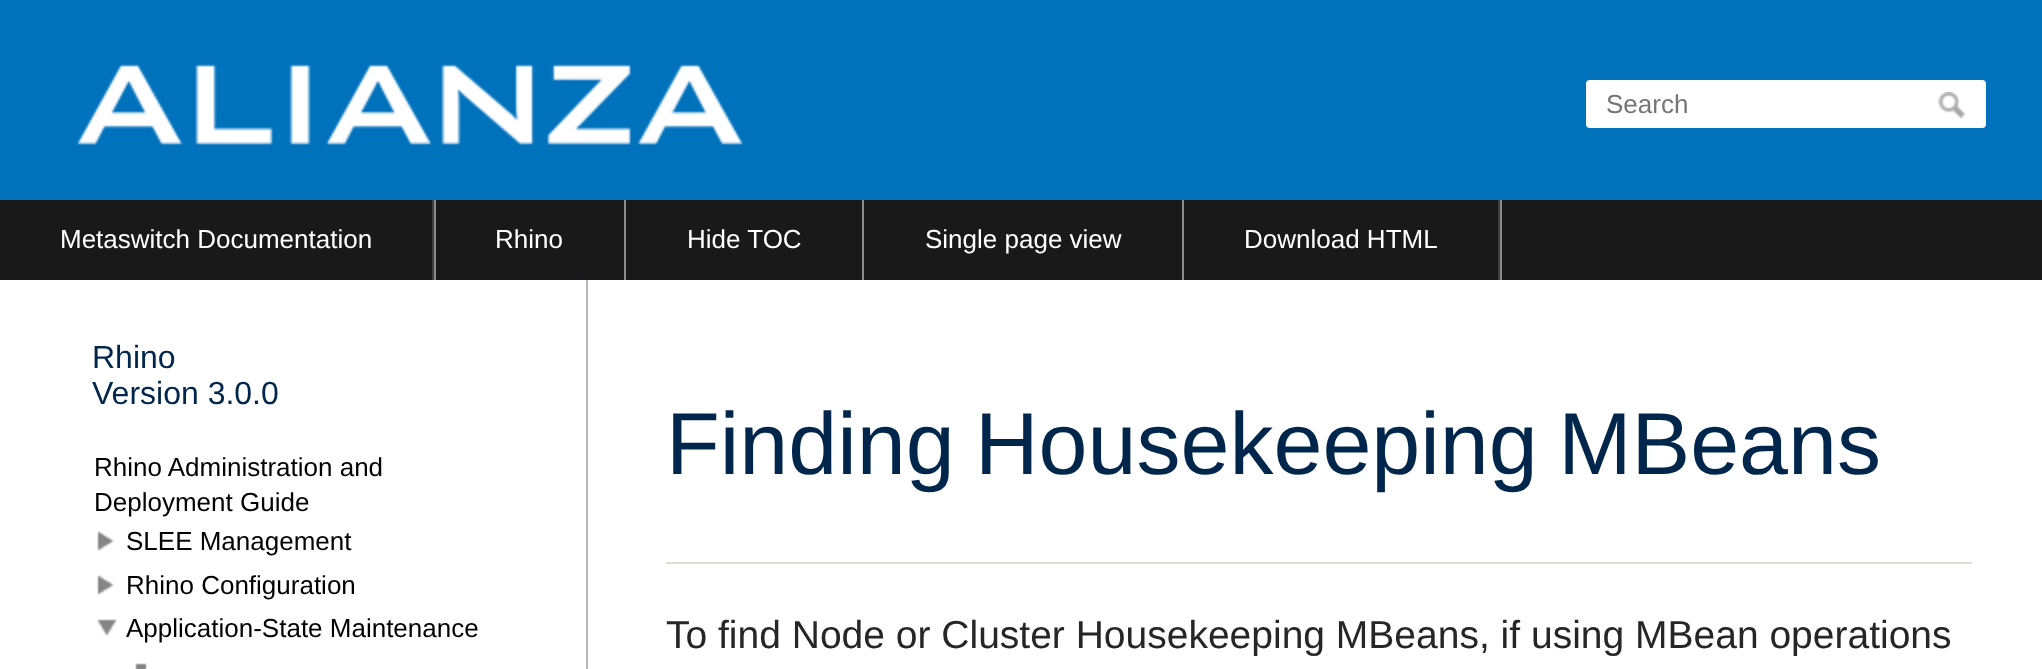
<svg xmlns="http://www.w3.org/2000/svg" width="2042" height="669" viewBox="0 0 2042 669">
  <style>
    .t1 { font: 26px Liberation Sans; fill: #757575; }
    .t2 { font: 26px Liberation Sans; fill: #fff; }
    .t3 { font: 32px Liberation Sans; fill: #00274b; }
    .t4 { font: 26px Liberation Sans; fill: #000; }
    .t5 { font: 88px Liberation Sans; fill: #00274b; }
    .t6 { font: 39px Liberation Sans; fill: #262626; }
  </style>
  <rect width="100%" height="100%" fill="#fff"/>
  <rect x="0" y="0" width="2042" height="200" fill="#0072bc"/>
  <image x="77" y="63" width="666" height="82" href="images/1.png"/>
  <rect x="0" y="200" width="2042" height="80" fill="#191919"/>
  <rect x="1586" y="80" width="400" height="48" rx="4" fill="#fff"/>
  <image x="1938" y="92" width="28" height="26" href="images/2.png"/>
  <text x="1606" y="113" class="t1">Search</text>
  <rect x="1500" y="200" width="2" height="80" fill="#8c8c8c"/>
  <rect x="432" y="200" width="2" height="80" fill="#404040"/>
  <text x="60" y="248" class="t2">Metaswitch Documentation</text>
  <rect x="434" y="200" width="2" height="80" fill="#8c8c8c"/>
  <text x="495" y="248" class="t2">Rhino</text>
  <rect x="624" y="200" width="2" height="80" fill="#8c8c8c"/>
  <text x="687" y="248" class="t2">Hide TOC</text>
  <rect x="862" y="200" width="2" height="80" fill="#8c8c8c"/>
  <text x="925" y="248" class="t2">Single page view</text>
  <rect x="1498" y="200" width="2" height="80" fill="#404040"/>
  <rect x="1182" y="200" width="2" height="80" fill="#8c8c8c"/>
  <text x="1244" y="248" class="t2">Download HTML</text>
  <text x="92" y="368" class="t3">Rhino</text>
  <text x="92" y="404" class="t3">Version 3.0.0</text>
  <text x="94" y="476" class="t4">Rhino Administration and</text>
  <text x="94" y="511" class="t4">Deployment Guide</text>
  <image x="97" y="531" width="18" height="20" href="images/3.png"/>
  <text x="126" y="550" class="t4">SLEE Management</text>
  <image x="97" y="575" width="18" height="20" href="images/3.png"/>
  <text x="126" y="594" class="t4">Rhino Configuration</text>
  <image x="97" y="619" width="20" height="18" href="images/4.png"/>
  <text x="126" y="637" class="t4">Application-State Maintenance</text>
  <image x="135" y="663" width="12" height="6" href="images/5.png"/>
  <rect x="666" y="562" width="1306" height="2" fill="#ddddd8"/>
  <text x="666" y="474" word-spacing="-4" class="t5">Finding Housekeeping MBeans</text>
  <text x="666" y="648" class="t6">To find Node or Cluster Housekeeping MBeans, if using MBean operations</text>
  <rect x="586" y="280" width="2" height="389" fill="#bdb2bf"/>
</svg>
